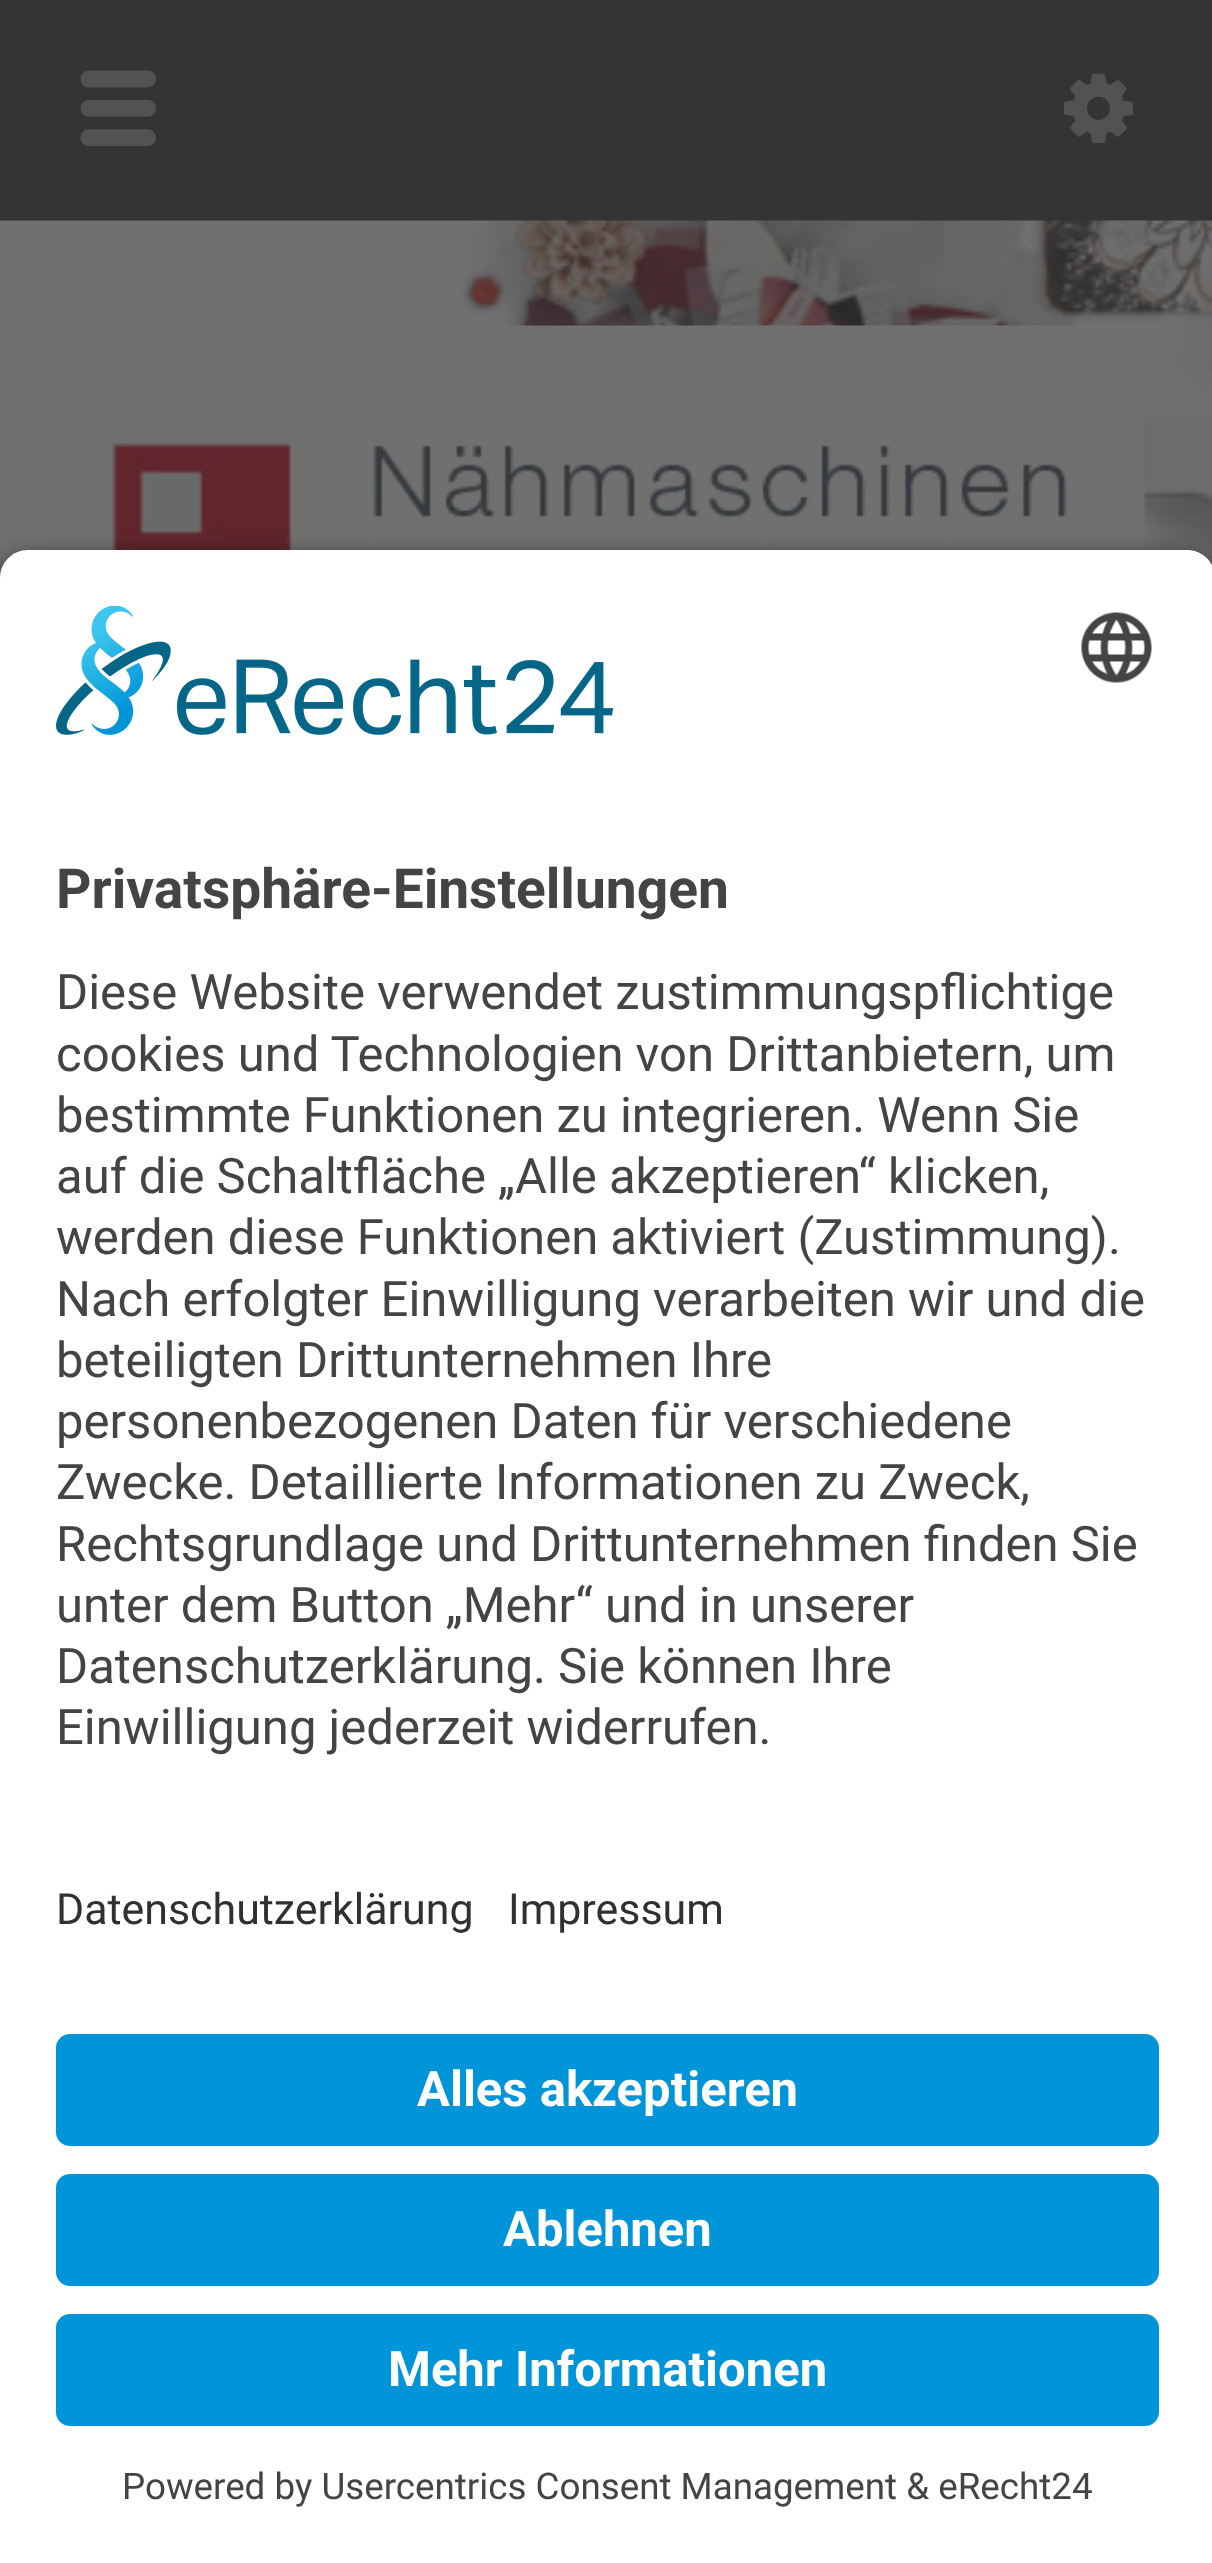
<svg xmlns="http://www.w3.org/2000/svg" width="1212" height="2563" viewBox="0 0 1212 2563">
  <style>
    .t1 { font: bold 55.1px Roboto; fill: #444; }
    .t2 { font: 49px Roboto; fill: #444; }
    .t3 { font: 42.9px Roboto; fill: #303030; }
    .t4 { font: bold 49px Roboto; fill: #fff; }
    .t5 { font: 36.75px Roboto; fill: #444; }
  </style>
  <rect width="100%" height="100%" fill="#343434"/>
  <image x="80" y="70" width="76" height="77" href="images/1.png"/>
  <image x="1064" y="73" width="69" height="70" href="images/2.png"/>
  <image x="0" y="220" width="1212" height="358" href="images/3.png"/>
  <image x="112" y="325" width="1033" height="225" href="images/4.png"/>
  <rect x="0" y="560" width="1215" height="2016" rx="28" fill="#000000cc" filter="blur(12px)"/>
  <path d="M28 550H1187C1202.5 550 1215 562.5 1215 578V1831H0V578C0 562.5 12.5 550 28 550Z" fill="#fff"/>
  <image x="56" y="606" width="558" height="129" href="images/5.png"/>
  <image x="1081" y="612" width="71" height="71" href="images/6.png"/>
  <text x="56" y="908" class="t1">Privatsphäre-Einstellungen</text>
  <text x="56" y="1009" class="t2">Diese Website verwendet zustimmungspflichtige</text>
  <text x="56" y="1071" class="t2">cookies und Technologien von Drittanbietern, um</text>
  <text x="56" y="1132" class="t2">bestimmte Funktionen zu integrieren. Wenn Sie</text>
  <text x="56" y="1193" class="t2">auf die Schaltfläche „Alle akzeptieren“ klicken,</text>
  <text x="56" y="1254" class="t2">werden diese Funktionen aktiviert (Zustimmung).</text>
  <text x="56" y="1316" class="t2">Nach erfolgter Einwilligung verarbeiten wir und die</text>
  <text x="56" y="1377" class="t2">beteiligten Drittunternehmen Ihre</text>
  <text x="56" y="1438" class="t2">personenbezogenen Daten für verschiedene</text>
  <text x="56" y="1499" class="t2">Zwecke. Detaillierte Informationen zu Zweck,</text>
  <text x="56" y="1561" class="t2">Rechtsgrundlage und Drittunternehmen finden Sie</text>
  <text x="56" y="1622" class="t2">unter dem Button „Mehr“ und in unserer</text>
  <text x="56" y="1683" class="t2">Datenschutzerklärung. Sie können Ihre</text>
  <text x="56" y="1744" class="t2">Einwilligung jederzeit widerrufen.</text>
  <rect x="0" y="1831" width="1212" height="732" fill="#fff"/>
  <text x="56" y="1924" class="t3">Datenschutzerklärung</text>
  <text x="508" y="1924" class="t3">Impressum</text>
  <rect x="56" y="2034" width="1103" height="112" rx="14" fill="#0094d8"/>
  <text x="417" y="2106" class="t4">Alles akzeptieren</text>
  <rect x="56" y="2174" width="1103" height="112" rx="14" fill="#0094d8"/>
  <text x="503" y="2246" class="t4">Ablehnen</text>
  <rect x="56" y="2314" width="1103" height="112" rx="14" fill="#0094d8"/>
  <text x="388" y="2386" class="t4">Mehr Informationen</text>
  <text x="122" y="2499" class="t5">Powered by Usercentrics Consent Management &amp; eRecht24</text>
</svg>
